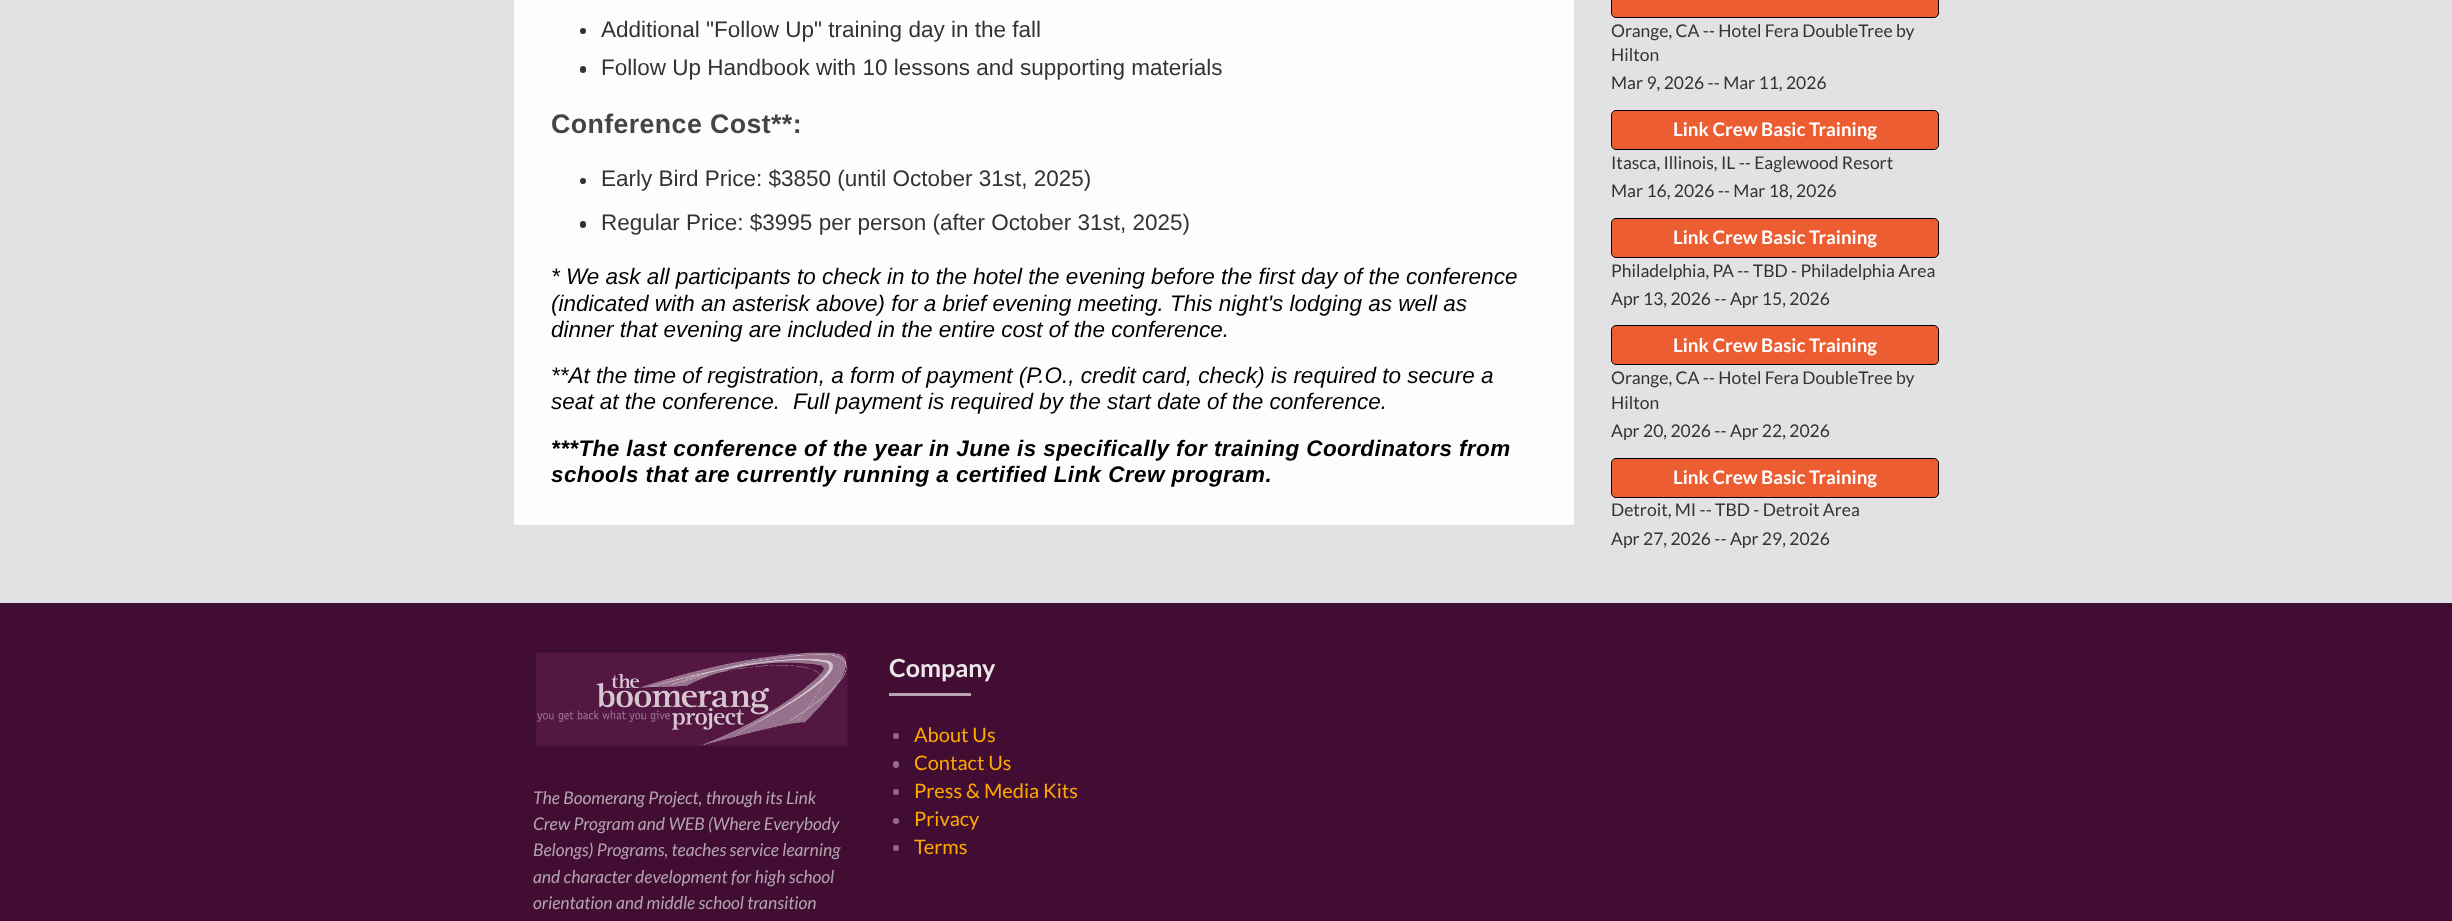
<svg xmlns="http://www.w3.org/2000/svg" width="2452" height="921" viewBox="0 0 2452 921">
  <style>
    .t1 { font: 22.5px Liberation Sans; fill: #333; }
    .t2 { font: bold 26.75px Liberation Sans; letter-spacing: 0.4px; fill: #444; }
    .t3 { font: italic 22.5px Liberation Sans; fill: #000; }
    .t4 { font: italic bold 22.5px Liberation Sans; letter-spacing: 0.4px; fill: #000; }
    .t5 { font: 17.5px Lato; fill: #333; }
    .t6 { font: bold 18.75px Lato; fill: #fff; }
    .t7 { font: italic 17.5px Lato; fill: #b3a3ad; }
    .t8 { font: bold 25px Lato; fill: #ebe7e9; }
    .t9 { font: 20px Lato; fill: #ffa800; }
  </style>
  <rect width="100%" height="100%" fill="#e2e2e4"/>
  <rect x="514" y="0" width="1060" height="525" fill="#fdfdfe"/>
  <circle cx="583" cy="31" r="3" fill="#333"/>
  <text x="601" y="37" class="t1">Additional "Follow Up" training day in the fall</text>
  <rect x="580" y="66" width="6" height="7" rx="3" fill="#333"/>
  <text x="601" y="75" class="t1">Follow Up Handbook with 10 lessons and supporting materials</text>
  <text x="551" y="133" class="t2">Conference Cost**:</text>
  <circle cx="583" cy="181" r="3" fill="#333"/>
  <text x="601" y="186" class="t1">Early Bird Price: $3850 (until October 31st, 2025)</text>
  <rect x="580" y="221" width="6" height="7" rx="3" fill="#333"/>
  <text x="601" y="230" class="t1">Regular Price: $3995 per person (after October 31st, 2025)</text>
  <text x="551" y="284" class="t3">* We ask all participants to check in to the hotel the evening before the first day of the conference</text>
  <text x="551" y="311" class="t3">(indicated with an asterisk above) for a brief evening meeting. This night's lodging as well as</text>
  <text x="551" y="337" class="t3">dinner that evening are included in the entire cost of the conference.</text>
  <text x="551" y="383" class="t3">**At the time of registration, a form of payment (P.O., credit card, check) is required to secure a</text>
  <text x="551" y="409" class="t3">seat at the conference.</text>
  <text x="793" y="409" class="t3">Full payment is required by the start date of the conference.</text>
  <text x="551" y="456" class="t4">***The last conference of the year in June is specifically for training Coordinators from</text>
  <text x="551" y="482" class="t4">schools that are currently running a certified Link Crew program.</text>
  <rect x="1611.5" y="-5.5" width="327" height="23" rx="4.5" fill="#ec5d32" stroke="#000"/>
  <text x="1611" y="37" class="t5">Orange, CA -- Hotel Fera DoubleTree by</text>
  <text x="1611" y="61" class="t5">Hilton</text>
  <text x="1611" y="89" class="t5">Mar 9, 2026 -- Mar 11, 2026</text>
  <rect x="1611.5" y="110.5" width="327" height="39" rx="4.5" fill="#ec5d32" stroke="#000"/>
  <text x="1673" y="136" class="t6">Link Crew Basic Training</text>
  <text x="1611" y="169" class="t5">Itasca, Illinois, IL -- Eaglewood Resort</text>
  <text x="1611" y="197" class="t5">Mar 16, 2026 -- Mar 18, 2026</text>
  <rect x="1611.5" y="218.5" width="327" height="39" rx="4.5" fill="#ec5d32" stroke="#000"/>
  <text x="1673" y="244" class="t6">Link Crew Basic Training</text>
  <text x="1611" y="277" class="t5">Philadelphia, PA -- TBD - Philadelphia Area</text>
  <text x="1611" y="305" class="t5">Apr 13, 2026 -- Apr 15, 2026</text>
  <rect x="1611.5" y="325.5" width="327" height="39" rx="4.5" fill="#ec5d32" stroke="#000"/>
  <text x="1673" y="352" class="t6">Link Crew Basic Training</text>
  <text x="1611" y="384" class="t5">Orange, CA -- Hotel Fera DoubleTree by</text>
  <text x="1611" y="409" class="t5">Hilton</text>
  <text x="1611" y="437" class="t5">Apr 20, 2026 -- Apr 22, 2026</text>
  <rect x="1611.5" y="458.5" width="327" height="39" rx="4.5" fill="#ec5d32" stroke="#000"/>
  <text x="1673" y="484" class="t6">Link Crew Basic Training</text>
  <text x="1611" y="516" class="t5">Detroit, MI -- TBD - Detroit Area</text>
  <text x="1611" y="545" class="t5">Apr 27, 2026 -- Apr 29, 2026</text>
  <rect x="0" y="603" width="2452" height="318" fill="#410d33"/>
  <image x="536" y="652" width="312" height="95" href="images/1.png"/>
  <text x="533" y="804" class="t7">The Boomerang Project, through its Link</text>
  <text x="533" y="830" class="t7">Crew Program and WEB (Where Everybody</text>
  <text x="533" y="856" class="t7">Belongs) Programs, teaches service learning</text>
  <text x="533" y="883" class="t7">and character development for high school</text>
  <text x="533" y="909" class="t7">orientation and middle school transition</text>
  <text x="889" y="677" class="t8">Company</text>
  <rect x="889" y="693" width="82" height="3" fill="#baa2b3"/>
  <circle cx="896" cy="736" r="3" fill="#936d88"/>
  <text x="914" y="742" class="t9">About Us</text>
  <rect x="893" y="761" width="6" height="7" rx="3" fill="#936d88"/>
  <text x="914" y="770" class="t9">Contact Us</text>
  <circle cx="896" cy="792" r="3" fill="#936d88"/>
  <text x="914" y="798" class="t9">Press &amp; Media Kits</text>
  <circle cx="896" cy="821" r="3" fill="#936d88"/>
  <text x="914" y="826" class="t9">Privacy</text>
  <circle cx="896" cy="848" r="3" fill="#936d88"/>
  <text x="914" y="854" class="t9">Terms</text>
</svg>
